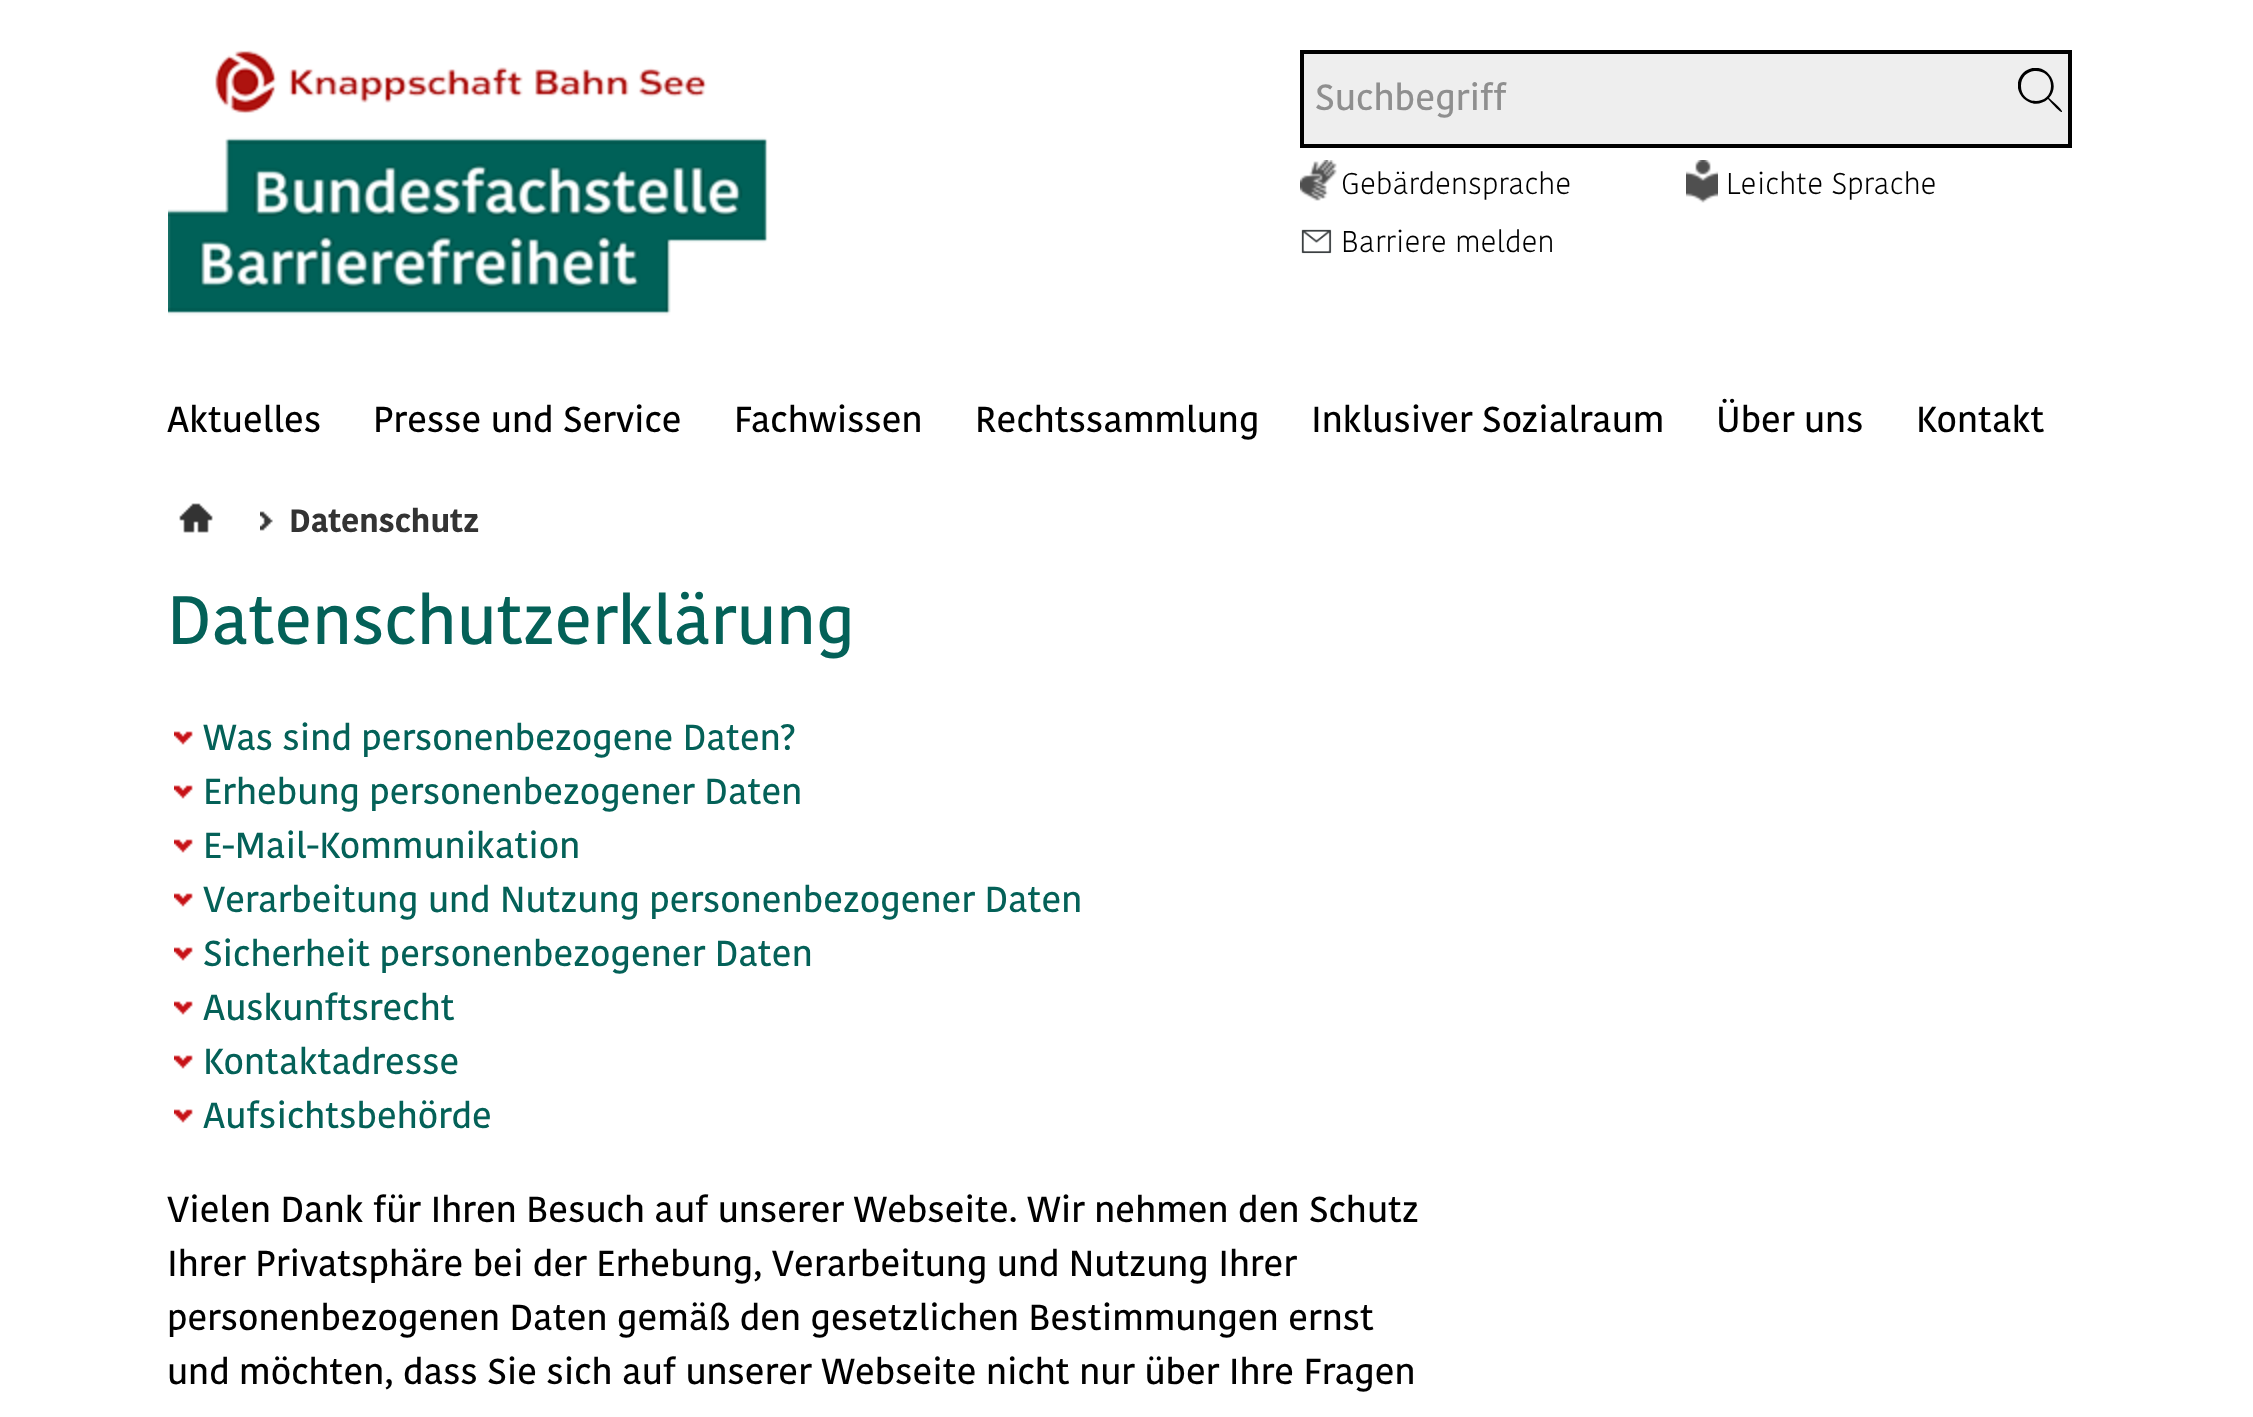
<svg xmlns="http://www.w3.org/2000/svg" width="2253" height="1417" viewBox="0 0 2253 1417">
  <style>
    .t1 { font: 500 36.25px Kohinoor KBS; fill: #8f8f8f; }
    .t2 { font: 300 30px Kohinoor KBS; fill: #000; }
    .t3 { font: 500 36px Kohinoor KBS; fill: #000; }
    .t4 { font: bold 32px Kohinoor KBS; fill: #333; }
    .t5 { font: 500 68px Kohinoor KBS; fill: #046158; }
    .t6 { font: 500 36px Kohinoor KBS; fill: #046158; }
  </style>
  <defs>
    <clipPath id="clip1"><rect x="2018" y="68" width="44" height="44"/></clipPath>
  </defs>
  <rect width="100%" height="100%" fill="#fff"/>
  <image x="168" y="50" width="600" height="266" href="images/1.png"/>
  <rect x="1302" y="52" width="768" height="94" fill="#eee" stroke="#000" stroke-width="4"/>
  <text x="1315" y="110" class="t1">Suchbegriff</text>
  <g clip-path="url(#clip1)">
    <path d="M2051 86C2051 66 2021 66 2021 86C2021 106 2051 106 2051 86M2062 112C2060 113 2050 101 2048 99C2031 114 2007 90 2023 73C2040 57 2064 81 2049 98C2051 100 2063 110 2062 112" fill="#000" fill-rule="evenodd"/>
  </g>
  <image x="1300" y="160" width="37" height="41" href="images/2.png"/>
  <text x="1341" y="194" class="t2">Gebärdensprache</text>
  <image x="1686" y="160" width="32" height="43" href="images/3.png"/>
  <text x="1726" y="194" class="t2">Leichte Sprache</text>
  <image x="1301" y="229" width="31" height="25" href="images/4.png"/>
  <text x="1341" y="252" class="t2">Barriere melden</text>
  <text x="167" y="432" class="t3">Aktuelles</text>
  <text x="373" y="432" class="t3">Presse und Service</text>
  <text x="734" y="432" class="t3">Fachwissen</text>
  <text x="975" y="432" class="t3">Rechtssammlung</text>
  <text x="1311" y="432" class="t3">Inklusiver Sozialraum</text>
  <text x="1716" y="432" class="t3">Über uns</text>
  <text x="1916" y="432" class="t3">Kontakt</text>
  <image x="179" y="503" width="34" height="30" href="images/5.png"/>
  <image x="260" y="511" width="13" height="20" href="images/6.png"/>
  <text x="289" y="532" class="t4">Datenschutz</text>
  <text x="167" y="644" class="t5">Datenschutzerklärung</text>
  <image x="174" y="731" width="19" height="14" href="images/7.png"/>
  <text x="203" y="750" class="t6">Was sind personenbezogene Daten?</text>
  <image x="174" y="785" width="19" height="14" href="images/7.png"/>
  <text x="203" y="804" class="t6">Erhebung personenbezogener Daten</text>
  <image x="174" y="839" width="19" height="14" href="images/7.png"/>
  <text x="203" y="858" class="t6">E-Mail-Kommunikation</text>
  <image x="174" y="893" width="19" height="14" href="images/7.png"/>
  <text x="203" y="912" class="t6">Verarbeitung und Nutzung personenbezogener Daten</text>
  <image x="174" y="947" width="19" height="14" href="images/7.png"/>
  <text x="203" y="966" class="t6">Sicherheit personenbezogener Daten</text>
  <image x="174" y="1001" width="19" height="14" href="images/7.png"/>
  <text x="203" y="1020" class="t6">Auskunftsrecht</text>
  <image x="174" y="1055" width="19" height="14" href="images/7.png"/>
  <text x="203" y="1074" class="t6">Kontaktadresse</text>
  <image x="174" y="1109" width="19" height="14" href="images/7.png"/>
  <text x="203" y="1128" class="t6">Aufsichtsbehörde</text>
  <text x="167" y="1222" class="t3">Vielen Dank für Ihren Besuch auf unserer Webseite. Wir nehmen den Schutz</text>
  <text x="167" y="1276" class="t3">Ihrer Privatsphäre bei der Erhebung, Verarbeitung und Nutzung Ihrer</text>
  <text x="167" y="1330" class="t3">personenbezogenen Daten gemäß den gesetzlichen Bestimmungen ernst</text>
  <text x="167" y="1384" class="t3">und möchten, dass Sie sich auf unserer Webseite nicht nur über Ihre Fragen</text>
</svg>
